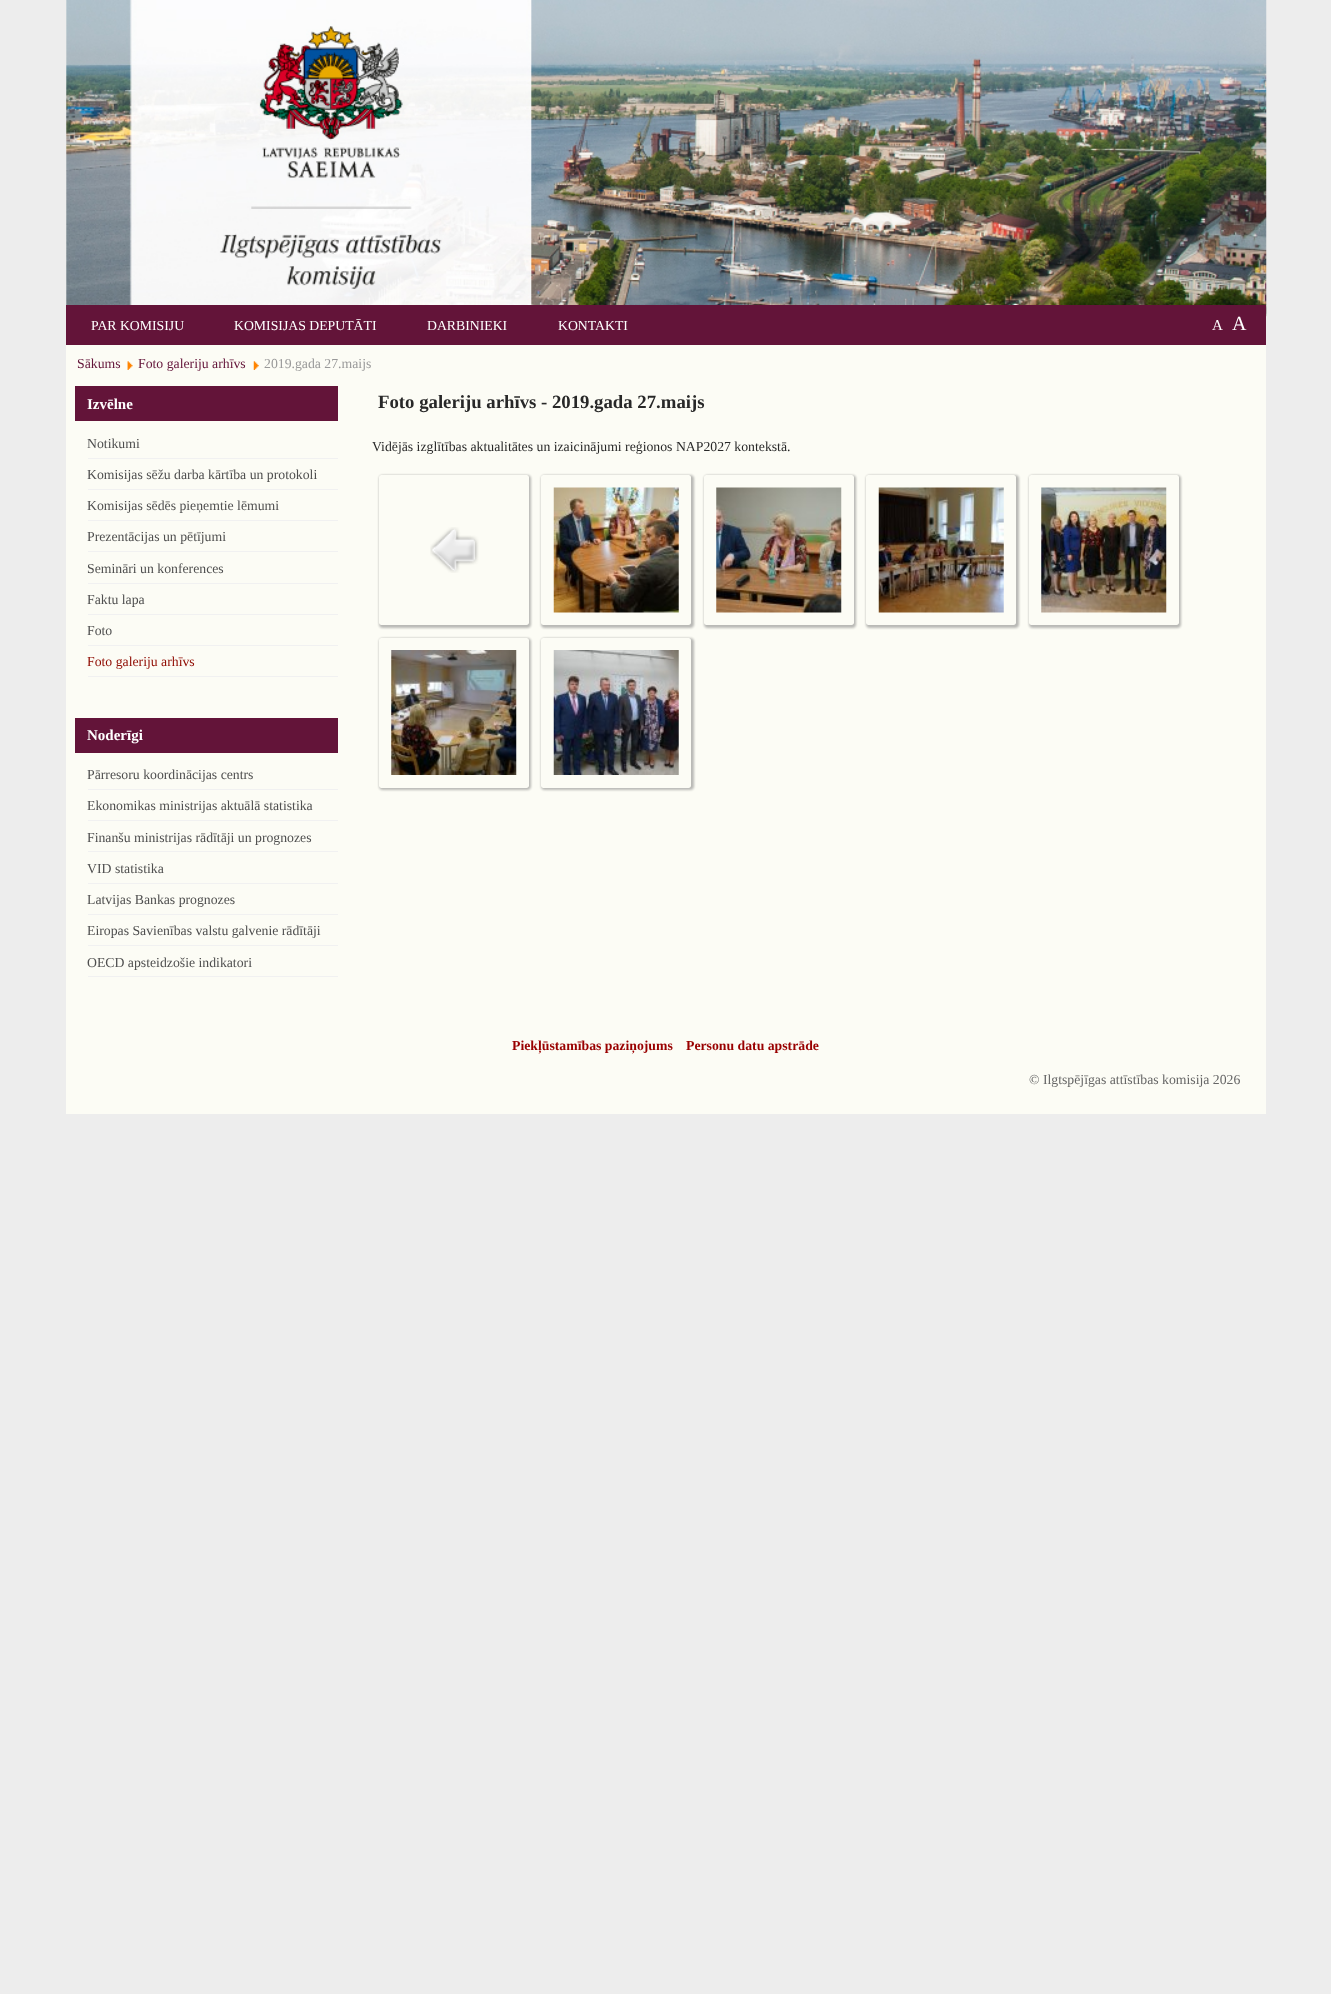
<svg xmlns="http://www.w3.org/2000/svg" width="1331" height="1994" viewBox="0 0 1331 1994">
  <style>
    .t1 { font: 13.75px Liberation Serif; fill: #fff; }
    .t2 { font: 15px Liberation Serif; fill: #fff; }
    .t3 { font: 20px Liberation Serif; fill: #fff; }
    .t4 { font: 13.75px Liberation Serif; fill: #631439; }
    .t5 { font: 13.75px Liberation Serif; fill: #999; }
    .t6 { font: bold 15px Liberation Serif; fill: #fff; }
    .t7 { font: 13.75px Liberation Serif; fill: #4f4f4f; }
    .t8 { font: 13.75px Liberation Serif; fill: #8f0a00; }
    .t9 { font: bold 18.75px Liberation Serif; fill: #282828; }
    .t10 { font: 13.75px Liberation Serif; fill: #282828; }
    .t11 { font: bold 13.75px Liberation Serif; fill: #900; }
    .t12 { font: 13.75px Liberation Serif; fill: #666; }
  </style>
  <defs>
    <clipPath id="clip1"><path d="M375 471H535V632H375ZM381.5 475H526.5C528 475 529 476 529 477.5V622.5C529 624 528 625 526.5 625H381.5C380 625 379 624 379 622.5V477.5C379 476 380 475 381.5 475Z" clip-rule="evenodd"/></clipPath>
    <clipPath id="clip2"><path d="M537 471H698V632H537ZM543.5 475H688.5C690 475 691 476 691 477.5V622.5C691 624 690 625 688.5 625H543.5C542 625 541 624 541 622.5V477.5C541 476 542 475 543.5 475Z" clip-rule="evenodd"/></clipPath>
    <clipPath id="clip3"><path d="M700 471H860V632H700ZM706.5 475H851.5C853 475 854 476 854 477.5V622.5C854 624 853 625 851.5 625H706.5C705 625 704 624 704 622.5V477.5C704 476 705 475 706.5 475Z" clip-rule="evenodd"/></clipPath>
    <clipPath id="clip4"><path d="M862 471H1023V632H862ZM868.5 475H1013.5C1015 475 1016 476 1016 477.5V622.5C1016 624 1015 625 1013.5 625H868.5C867 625 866 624 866 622.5V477.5C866 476 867 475 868.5 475Z" clip-rule="evenodd"/></clipPath>
    <clipPath id="clip5"><path d="M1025 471H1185V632H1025ZM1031.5 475H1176.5C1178 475 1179 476 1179 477.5V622.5C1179 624 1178 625 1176.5 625H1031.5C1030 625 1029 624 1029 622.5V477.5C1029 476 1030 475 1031.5 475Z" clip-rule="evenodd"/></clipPath>
    <clipPath id="clip6"><path d="M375 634H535V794H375ZM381.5 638H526.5C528 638 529 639 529 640.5V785.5C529 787 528 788 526.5 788H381.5C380 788 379 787 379 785.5V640.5C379 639 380 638 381.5 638Z" clip-rule="evenodd"/></clipPath>
    <clipPath id="clip7"><path d="M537 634H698V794H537ZM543.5 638H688.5C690 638 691 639 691 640.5V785.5C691 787 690 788 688.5 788H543.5C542 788 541 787 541 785.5V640.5C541 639 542 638 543.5 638Z" clip-rule="evenodd"/></clipPath>
  </defs>
  <rect width="100%" height="100%" fill="#ededed"/>
  <rect x="66" y="0" width="1200" height="1114" fill="#fcfcf5"/>
  <image x="66" y="0" width="1201" height="317" href="images/1.png"/>
  <rect x="66" y="305" width="1200" height="40" fill="#631439"/>
  <text x="91" y="330" class="t1">PAR KOMISIJU</text>
  <text x="234" y="330" class="t1">KOMISIJAS DEPUTĀTI</text>
  <text x="427" y="330" class="t1">DARBINIEKI</text>
  <text x="558" y="330" class="t1">KONTAKTI</text>
  <text x="1212" y="330" class="t2">A</text>
  <text x="1232" y="330" class="t3">A</text>
  <text x="77" y="368" class="t4">Sākums</text>
  <image x="127" y="361" width="6" height="9" href="images/2.png"/>
  <text x="138" y="368" class="t4">Foto galeriju arhīvs</text>
  <image x="253" y="361" width="6" height="9" href="images/3.png"/>
  <text x="264" y="368" class="t5">2019.gada 27.maijs</text>
  <rect x="75" y="386" width="263" height="35" fill="#631439"/>
  <text x="87" y="409" class="t6">Izvēlne</text>
  <rect x="88" y="458" width="250" height="1" fill="#f1f1f1"/>
  <text x="87" y="448" class="t7">Notikumi</text>
  <rect x="88" y="489" width="250" height="1" fill="#f1f1f1"/>
  <text x="87" y="479" class="t7">Komisijas sēžu darba kārtība un protokoli</text>
  <rect x="88" y="520" width="250" height="1" fill="#f1f1f1"/>
  <text x="87" y="510" class="t7">Komisijas sēdēs pieņemtie lēmumi</text>
  <rect x="88" y="551" width="250" height="1" fill="#f1f1f1"/>
  <text x="87" y="541" class="t7">Prezentācijas un pētījumi</text>
  <rect x="88" y="583" width="250" height="1" fill="#f1f1f1"/>
  <text x="87" y="573" class="t7">Semināri un konferences</text>
  <rect x="88" y="614" width="250" height="1" fill="#f1f1f1"/>
  <text x="87" y="604" class="t7">Faktu lapa</text>
  <rect x="88" y="645" width="250" height="1" fill="#f1f1f1"/>
  <text x="87" y="635" class="t7">Foto</text>
  <rect x="88" y="676" width="250" height="1" fill="#f1f1f1"/>
  <text x="87" y="666" class="t8">Foto galeriju arhīvs</text>
  <rect x="75" y="718" width="263" height="35" fill="#631439"/>
  <text x="87" y="740" class="t6">Noderīgi</text>
  <rect x="88" y="789" width="250" height="1" fill="#f1f1f1"/>
  <text x="87" y="779" class="t7">Pārresoru koordinācijas centrs</text>
  <rect x="88" y="820" width="250" height="1" fill="#f1f1f1"/>
  <text x="87" y="810" class="t7">Ekonomikas ministrijas aktuālā statistika</text>
  <rect x="88" y="851" width="250" height="1" fill="#f1f1f1"/>
  <text x="87" y="842" class="t7">Finanšu ministrijas rādītāji un prognozes</text>
  <rect x="88" y="883" width="250" height="1" fill="#f1f1f1"/>
  <text x="87" y="873" class="t7">VID statistika</text>
  <rect x="88" y="914" width="250" height="1" fill="#f1f1f1"/>
  <text x="87" y="904" class="t7">Latvijas Bankas prognozes</text>
  <rect x="88" y="945" width="250" height="1" fill="#f1f1f1"/>
  <text x="87" y="935" class="t7">Eiropas Savienības valstu galvenie rādītāji</text>
  <rect x="88" y="976" width="250" height="1" fill="#f1f1f1"/>
  <text x="87" y="967" class="t7">OECD apsteidzošie indikatori</text>
  <text x="378" y="408" class="t9">Foto galeriju arhīvs - 2019.gada 27.maijs</text>
  <text x="372" y="451" class="t10">Vidējās izglītības aktualitātes un izaicinājumi reģionos NAP2027 kontekstā.</text>
  <g clip-path="url(#clip1)">
    <rect x="379" y="475" width="152" height="153" rx="4" fill="#78787880" filter="blur(1px)"/>
  </g>
  <image x="430" y="527" width="49" height="46" href="images/4.png"/>
  <g clip-path="url(#clip2)">
    <rect x="541" y="475" width="153" height="153" rx="4" fill="#78787880" filter="blur(1px)"/>
  </g>
  <image x="553" y="487" width="126" height="126" href="images/5.png"/>
  <g clip-path="url(#clip3)">
    <rect x="704" y="475" width="152" height="153" rx="4" fill="#78787880" filter="blur(1px)"/>
  </g>
  <image x="716" y="487" width="126" height="126" href="images/6.png"/>
  <g clip-path="url(#clip4)">
    <rect x="866" y="475" width="153" height="153" rx="4" fill="#78787880" filter="blur(1px)"/>
  </g>
  <image x="878" y="487" width="126" height="126" href="images/7.png"/>
  <g clip-path="url(#clip5)">
    <rect x="1029" y="475" width="152" height="153" rx="4" fill="#78787880" filter="blur(1px)"/>
  </g>
  <image x="1041" y="487" width="126" height="126" href="images/8.png"/>
  <g clip-path="url(#clip6)">
    <rect x="379" y="638" width="152" height="152" rx="4" fill="#78787880" filter="blur(1px)"/>
  </g>
  <image x="391" y="650" width="126" height="125" href="images/9.png"/>
  <g clip-path="url(#clip7)">
    <rect x="541" y="638" width="153" height="152" rx="4" fill="#78787880" filter="blur(1px)"/>
  </g>
  <image x="553" y="650" width="126" height="125" href="images/10.png"/>
  <text x="512" y="1050" class="t11">Piekļūstamības paziņojums</text>
  <text x="686" y="1050" class="t11">Personu datu apstrāde</text>
  <text x="1029" y="1084" class="t12">© Ilgtspējīgas attīstības komisija 2026</text>
</svg>
